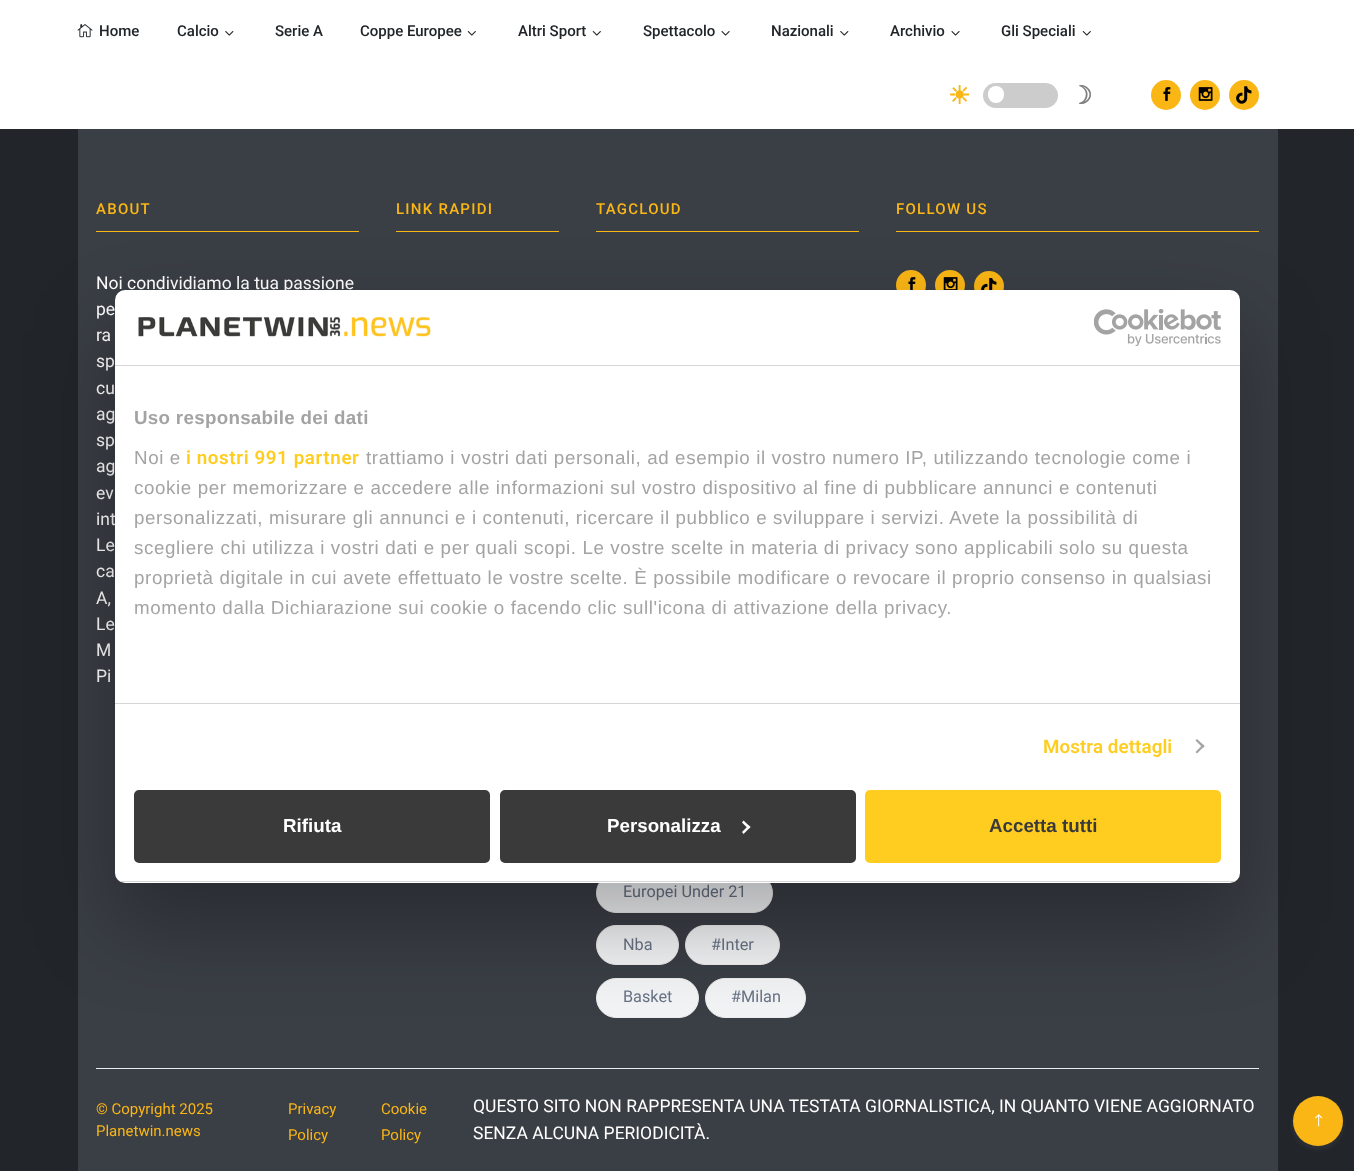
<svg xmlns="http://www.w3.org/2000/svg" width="1354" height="1171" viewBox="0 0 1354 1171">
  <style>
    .t1 { font: 500 15px Roboto; fill: #212529; }
    .t2 { font: bold 25px DejaVu Sans; fill: #fab615; }
    .t3 { font: bold 25px DejaVu Sans; fill: #808080; }
    .t4 { font: 500 15px Roboto; letter-spacing: 1.25px; fill: #fab615; }
    .t5 { font: 17.5px Roboto; fill: #fff; }
    .t6 { font: 16.25px Roboto; fill: #687385; }
    .t7 { font: 15px Roboto; fill: #fab615; }
    .t8 { font: bold 18.75px Liberation Sans; letter-spacing: 0.3px; fill: #a3a3a3; }
    .t9 { font: 18.75px Liberation Sans; letter-spacing: 0.62px; fill: #a3a3a3; }
    .t10 { font: 600 18.75px Roboto; letter-spacing: 0.62px; fill: #ffcd20; }
    .t11 { font: 600 18.75px Roboto; letter-spacing: 0.1px; fill: #ffcd20; }
    .t12 { font: bold 18.75px Liberation Sans; fill: #fff; }
    .t13 { font: bold 18.75px Liberation Sans; fill: #3a3a3b; }
  </style>
  <defs>
    <linearGradient id="g1" gradientUnits="userSpaceOnUse" x1="669" y1="703" x2="669" y2="609"><stop offset="0" stop-color="#fff"/><stop offset="0.5" stop-color="#fff" stop-opacity="0.8"/><stop offset="1" stop-color="#fff" stop-opacity="0"/></linearGradient>
    <clipPath id="clip1"><rect x="115" y="290" width="1125" height="593" rx="10"/></clipPath>
  </defs>
  <rect width="100%" height="100%" fill="#22262b"/>
  <rect x="0" y="0" width="1354" height="129" fill="#fff"/>
  <image x="77" y="24" width="16" height="14" href="images/1.png"/>
  <text x="99" y="36" class="t1">Home</text>
  <text x="177" y="36" class="t1">Calcio</text>
  <image x="225" y="31" width="9" height="5" href="images/2.png"/>
  <text x="275" y="36" class="t1">Serie A</text>
  <text x="360" y="36" class="t1">Coppe Europee</text>
  <image x="467" y="31" width="9" height="5" href="images/3.png"/>
  <text x="518" y="36" class="t1">Altri Sport</text>
  <image x="592" y="31" width="9" height="5" href="images/3.png"/>
  <text x="643" y="36" class="t1">Spettacolo</text>
  <image x="721" y="31" width="9" height="5" href="images/4.png"/>
  <text x="771" y="36" class="t1">Nazionali</text>
  <image x="840" y="31" width="9" height="5" href="images/2.png"/>
  <text x="890" y="36" class="t1">Archivio</text>
  <image x="951" y="31" width="9" height="5" href="images/4.png"/>
  <text x="1001" y="36" class="t1">Gli Speciali</text>
  <image x="1082" y="31" width="9" height="5" href="images/3.png"/>
  <text x="948" y="104" class="t2">☀︎</text>
  <rect x="983" y="83" width="75" height="25" rx="12.5" fill="#ccc"/>
  <rect x="988" y="86" width="16" height="17" rx="8" fill="#fff"/>
  <text x="1070" y="104" class="t3">☽</text>
  <circle cx="1166" cy="95" r="15" fill="#fab615"/>
  <image x="1163" y="87" width="8" height="14" href="images/5.png"/>
  <circle cx="1205" cy="95" r="15" fill="#fab615"/>
  <image x="1198" y="87" width="15" height="14" href="images/6.png"/>
  <circle cx="1244" cy="95" r="15" fill="#fab615"/>
  <image x="1236" y="86" width="16" height="18" href="images/7.png"/>
  <rect x="78" y="129" width="1200" height="1042" fill="#3a3e45"/>
  <rect x="96" y="231" width="263" height="1" fill="#fab615"/>
  <text x="96" y="214" class="t4">ABOUT</text>
  <text x="96" y="289" class="t5">Noi condividiamo la tua passione</text>
  <text x="96" y="315" class="t5">pe</text>
  <text x="96" y="341" class="t5">ra</text>
  <text x="96" y="367" class="t5">sp</text>
  <text x="96" y="394" class="t5">cu</text>
  <text x="96" y="420" class="t5">ag</text>
  <text x="96" y="446" class="t5">sp</text>
  <text x="96" y="472" class="t5">ag</text>
  <text x="96" y="499" class="t5">ev</text>
  <text x="96" y="525" class="t5">int</text>
  <text x="96" y="551" class="t5">Le</text>
  <text x="96" y="577" class="t5">ca</text>
  <text x="96" y="604" class="t5">A,</text>
  <text x="96" y="630" class="t5">Le</text>
  <text x="96" y="656" class="t5">M</text>
  <text x="96" y="682" class="t5">Pi</text>
  <rect x="396" y="231" width="163" height="1" fill="#fab615"/>
  <text x="396" y="214" class="t4">LINK RAPIDI</text>
  <rect x="596" y="231" width="263" height="1" fill="#fab615"/>
  <text x="596" y="214" class="t4">TAGCLOUD</text>
  <rect x="596.5" y="873.5" width="176" height="39" rx="19.5" fill="#f2f3f5" stroke="#ebebeb"/>
  <text x="623" y="897" class="t6">Europei Under 21</text>
  <rect x="596.5" y="925.5" width="82" height="39" rx="19.5" fill="#f2f3f5" stroke="#ebebeb"/>
  <text x="623" y="950" class="t6">Nba</text>
  <rect x="685.5" y="925.5" width="94" height="39" rx="19.5" fill="#f2f3f5" stroke="#ebebeb"/>
  <text x="711" y="950" class="t6">#Inter</text>
  <rect x="596.5" y="978.5" width="102" height="39" rx="19.5" fill="#f2f3f5" stroke="#ebebeb"/>
  <text x="623" y="1002" class="t6">Basket</text>
  <rect x="705.5" y="978.5" width="100" height="39" rx="19.5" fill="#f2f3f5" stroke="#ebebeb"/>
  <text x="731" y="1002" class="t6">#Milan</text>
  <rect x="896" y="231" width="363" height="1" fill="#fab615"/>
  <text x="896" y="214" class="t4">FOLLOW US</text>
  <circle cx="911" cy="285" r="15" fill="#fab615"/>
  <image x="908" y="277" width="8" height="13" href="images/8.png"/>
  <circle cx="950" cy="285" r="15" fill="#fab615"/>
  <image x="943" y="277" width="15" height="13" href="images/9.png"/>
  <circle cx="989" cy="286" r="15" fill="#fab615"/>
  <image x="981" y="278" width="16" height="12" href="images/10.png"/>
  <rect x="96" y="1068" width="1163" height="1" fill="#eaecee"/>
  <text x="96" y="1114" class="t7">© Copyright 2025</text>
  <text x="96" y="1136" class="t7">Planetwin.news</text>
  <text x="288" y="1114" class="t7">Privacy</text>
  <text x="288" y="1140" class="t7">Policy</text>
  <text x="381" y="1114" class="t7">Cookie</text>
  <text x="381" y="1140" class="t7">Policy</text>
  <text x="473" y="1112" class="t5">QUESTO SITO NON RAPPRESENTA UNA TESTATA GIORNALISTICA, IN QUANTO VIENE AGGIORNATO</text>
  <text x="473" y="1139" class="t5">SENZA ALCUNA PERIODICITÀ.</text>
  <rect x="1293" y="1099" width="50" height="50" rx="25" fill="#6b6b6b33" filter="blur(2.5px)"/>
  <circle cx="1318" cy="1121" r="25" fill="#fab615"/>
  <image x="1315" y="1114" width="8" height="13" href="images/11.png"/>
  <rect x="115" y="330" width="1125" height="593" rx="10" fill="#0000004d" filter="blur(42.5px)"/>
  <rect x="115" y="290" width="1125" height="593" rx="10" fill="#fff"/>
  <rect x="115" y="365" width="1125" height="1" fill="#d6d6d6"/>
  <image x="138" y="317" width="293" height="20" href="images/12.png"/>
  <image x="1094" y="309" width="127" height="37" href="images/13.png"/>
  <rect x="115" y="703" width="1125" height="1" fill="#d6d6d6"/>
  <text x="134" y="424" class="t8">Uso responsabile dei dati</text>
  <text x="134" y="464" class="t9">Noi e</text>
  <text x="186" y="464" class="t10">i nostri 991 partner</text>
  <text x="366" y="464" class="t9">trattiamo i vostri dati personali, ad esempio il vostro numero IP, utilizzando tecnologie come i</text>
  <text x="134" y="494" class="t9">cookie per memorizzare e accedere alle informazioni sul vostro dispositivo al fine di pubblicare annunci e contenuti</text>
  <text x="134" y="524" class="t9">personalizzati, misurare gli annunci e i contenuti, ricercare il pubblico e sviluppare i servizi. Avete la possibilità di</text>
  <text x="134" y="554" class="t9">scegliere chi utilizza i vostri dati e per quali scopi. Le vostre scelte in materia di privacy sono applicabili solo su questa</text>
  <text x="134" y="584" class="t9">proprietà digitale in cui avete effettuato le vostre scelte. È possibile modificare o revocare il proprio consenso in qualsiasi</text>
  <text x="134" y="614" class="t9">momento dalla Dichiarazione sui cookie o facendo clic sull'icona di attivazione della privacy.</text>
  <rect x="135" y="611" width="815" height="7" fill="url(#g1)"/>
  <text x="1043" y="753" class="t11">Mostra dettagli</text>
  <path d="M1197 739L1204.5 746L1203 748L1195.5 740.5Z" fill="#a3a3a3"/>
  <path d="M1203 744.5L1204.5 746L1197 753.5L1195.5 752Z" fill="#a3a3a3"/>
  <g clip-path="url(#clip1)">
    <rect x="115" y="881" width="1125" height="1" fill="#d6d6d6"/>
  </g>
  <rect x="135.5" y="791.5" width="353" height="70" rx="3.5" fill="#3a3a3b" stroke="#3a3a3b" stroke-width="3"/>
  <text x="283" y="832" class="t12">Rifiuta</text>
  <rect x="501.5" y="791.5" width="353" height="70" rx="3.5" fill="#3a3a3b" stroke="#3a3a3b" stroke-width="3"/>
  <text x="607" y="832" class="t12">Personalizza</text>
  <path d="M743.5 820.5L750.5 827L748.5 829L742 822.5Z" fill="#fff"/>
  <path d="M748.5 825.5L750.5 827L743.5 834L742 832Z" fill="#fff"/>
  <rect x="866.5" y="791.5" width="353" height="70" rx="3.5" fill="#ffcd20" stroke="#ffcd20" stroke-width="3"/>
  <text x="989" y="832" class="t13">Accetta tutti</text>
</svg>
